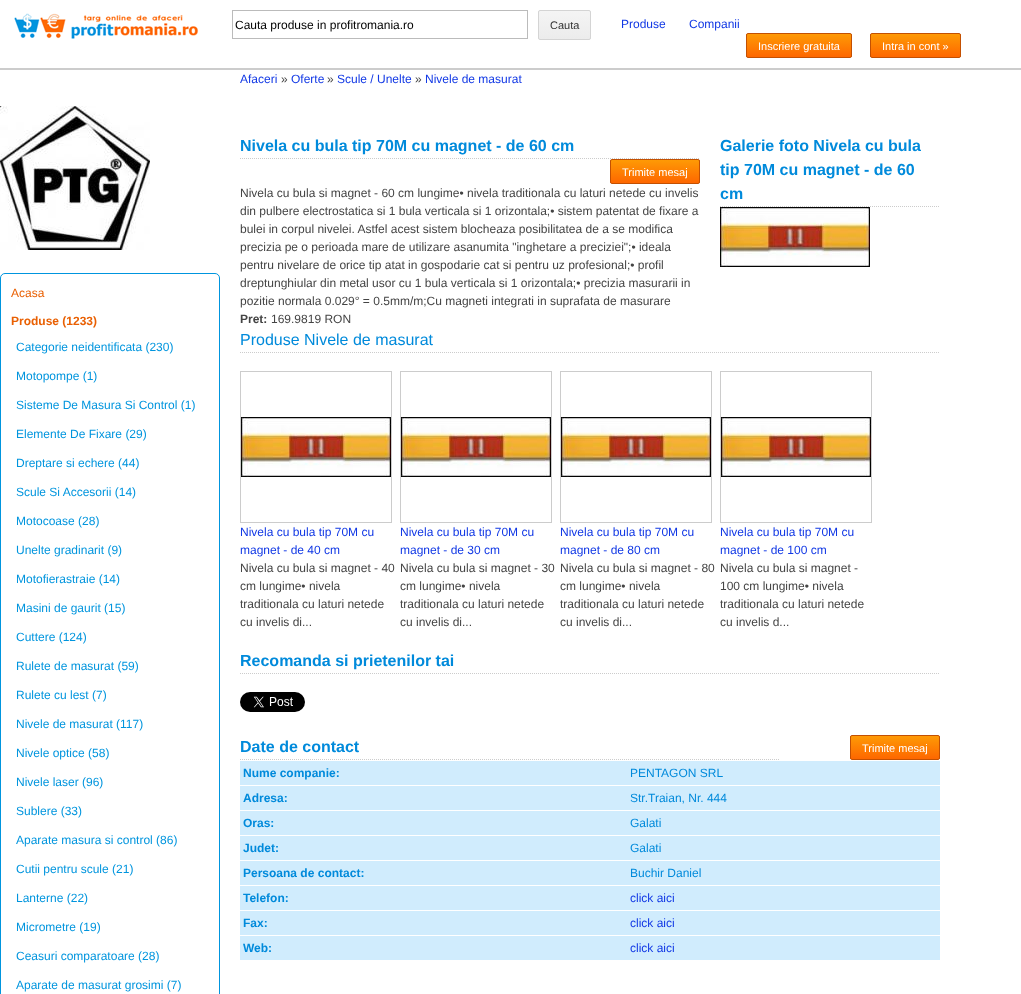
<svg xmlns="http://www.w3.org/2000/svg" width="1021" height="994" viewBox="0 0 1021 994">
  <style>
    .t1 { font: 12px Liberation Sans; fill: #000; }
    .t2 { font: 11px Liberation Sans; fill: #333; }
    .t3 { font: 12px Liberation Sans; fill: #1138e5; }
    .t4 { font: 11px Liberation Sans; fill: #fff; }
    .t5 { font: 12px Liberation Sans; fill: #444; }
    .t6 { font: 12px Liberation Sans; fill: #e96003; }
    .t7 { font: bold 12px Liberation Sans; fill: #e96003; }
    .t8 { font: 12px Liberation Sans; fill: #0095de; }
    .t9 { font: bold 16px Liberation Sans; fill: #008adb; }
    .t10 { font: bold 12px Liberation Sans; fill: #444; }
    .t11 { font: 16px Liberation Sans; fill: #008adb; }
    .t12 { font: bold 12px Liberation Sans; fill: #008adb; }
    .t13 { font: 12px Liberation Sans; fill: #008adb; }
  </style>
  <defs>
    <clipPath id="clip1"><rect x="538" y="10" width="53" height="30" rx="2"/></clipPath>
    <linearGradient id="g1" gradientUnits="userSpaceOnUse" x1="565" y1="11" x2="565" y2="39"><stop offset="0" stop-color="#f4f4f4"/><stop offset="1" stop-color="#ececec"/></linearGradient>
    <clipPath id="clip2"><rect x="746" y="33" width="106" height="25" rx="2"/></clipPath>
    <linearGradient id="g2" gradientUnits="userSpaceOnUse" x1="799" y1="34" x2="799" y2="57"><stop offset="0" stop-color="#fe9a05"/><stop offset="1" stop-color="#fe6700"/></linearGradient>
    <clipPath id="clip3"><rect x="870" y="33" width="91" height="25" rx="2"/></clipPath>
    <linearGradient id="g3" gradientUnits="userSpaceOnUse" x1="916" y1="34" x2="916" y2="57"><stop offset="0" stop-color="#fe9a05"/><stop offset="1" stop-color="#fe6700"/></linearGradient>
    <clipPath id="clip4"><rect x="610" y="159" width="90" height="25" rx="2"/></clipPath>
    <linearGradient id="g4" gradientUnits="userSpaceOnUse" x1="655" y1="160" x2="655" y2="183"><stop offset="0" stop-color="#fe9a05"/><stop offset="1" stop-color="#fe6700"/></linearGradient>
    <clipPath id="clip5"><rect x="850" y="735" width="90" height="25" rx="2"/></clipPath>
    <linearGradient id="g5" gradientUnits="userSpaceOnUse" x1="895" y1="736" x2="895" y2="759"><stop offset="0" stop-color="#fe9a05"/><stop offset="1" stop-color="#fe6700"/></linearGradient>
  </defs>
  <rect width="100%" height="100%" fill="#fff"/>
  <rect x="0" y="68" width="1021" height="2" fill="#ccc"/>
  <image x="14" y="13" width="185" height="26" href="images/1.png"/>
  <rect x="232.5" y="10.5" width="295" height="28" fill="none" stroke="#bbb"/>
  <text x="235" y="29" class="t1">Cauta produse in profitromania.ro</text>
  <g clip-path="url(#clip1)">
    <rect x="538" y="11" width="53" height="28" fill="url(#g1)"/>
  </g>
  <rect x="538.5" y="10.5" width="52" height="29" rx="1.5" fill="none" stroke="#d4d4d4"/>
  <text x="550" y="29" class="t2">Cauta</text>
  <text x="621" y="28" class="t3">Produse</text>
  <text x="689" y="28" class="t3">Companii</text>
  <g clip-path="url(#clip2)">
    <rect x="746" y="34" width="106" height="23" fill="url(#g2)"/>
  </g>
  <rect x="746.5" y="33.5" width="105" height="24" rx="1.5" fill="none" stroke="#c35002"/>
  <text x="758" y="50" class="t4">Inscriere gratuita</text>
  <g clip-path="url(#clip3)">
    <rect x="870" y="34" width="91" height="23" fill="url(#g3)"/>
  </g>
  <rect x="870.5" y="33.5" width="90" height="24" rx="1.5" fill="none" stroke="#c35002"/>
  <text x="882" y="50" class="t4">Intra in cont »</text>
  <text x="240" y="83" class="t3">Afaceri</text>
  <text x="281" y="83" class="t5">»</text>
  <text x="291" y="83" class="t3">Oferte</text>
  <text x="327" y="83" class="t5">»</text>
  <text x="337" y="83" class="t3">Scule / Unelte</text>
  <text x="415" y="83" class="t5">»</text>
  <text x="425" y="83" class="t3">Nivele de masurat</text>
  <image x="0" y="106" width="150" height="144" href="images/2.png"/>
  <rect x="0.5" y="273.5" width="219" height="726" rx="4.5" fill="none" stroke="#0095de"/>
  <text x="11" y="297" class="t6">Acasa</text>
  <text x="11" y="325" class="t7">Produse (1233)</text>
  <text x="16" y="351" class="t8">Categorie neidentificata (230)</text>
  <text x="16" y="380" class="t8">Motopompe (1)</text>
  <text x="16" y="409" class="t8">Sisteme De Masura Si Control (1)</text>
  <text x="16" y="438" class="t8">Elemente De Fixare (29)</text>
  <text x="16" y="467" class="t8">Dreptare si echere (44)</text>
  <text x="16" y="496" class="t8">Scule Si Accesorii (14)</text>
  <text x="16" y="525" class="t8">Motocoase (28)</text>
  <text x="16" y="554" class="t8">Unelte gradinarit (9)</text>
  <text x="16" y="583" class="t8">Motofierastraie (14)</text>
  <text x="16" y="612" class="t8">Masini de gaurit (15)</text>
  <text x="16" y="641" class="t8">Cuttere (124)</text>
  <text x="16" y="670" class="t8">Rulete de masurat (59)</text>
  <text x="16" y="699" class="t8">Rulete cu lest (7)</text>
  <text x="16" y="728" class="t8">Nivele de masurat (117)</text>
  <text x="16" y="757" class="t8">Nivele optice (58)</text>
  <text x="16" y="786" class="t8">Nivele laser (96)</text>
  <text x="16" y="815" class="t8">Sublere (33)</text>
  <text x="16" y="844" class="t8">Aparate masura si control (86)</text>
  <text x="16" y="873" class="t8">Cutii pentru scule (21)</text>
  <text x="16" y="902" class="t8">Lanterne (22)</text>
  <text x="16" y="931" class="t8">Micrometre (19)</text>
  <text x="16" y="960" class="t8">Ceasuri comparatoare (28)</text>
  <text x="16" y="989" class="t8">Aparate de masurat grosimi (7)</text>
  <path d="M240 158.5H700" fill="none" stroke="#ccc" stroke-dasharray="1 1"/>
  <text x="240" y="151" class="t9">Nivela cu bula tip 70M cu magnet - de 60 cm</text>
  <g clip-path="url(#clip4)">
    <rect x="610" y="160" width="90" height="23" fill="url(#g4)"/>
  </g>
  <rect x="610.5" y="159.5" width="89" height="24" rx="1.5" fill="none" stroke="#c35002"/>
  <text x="622" y="176" class="t4">Trimite mesaj</text>
  <text x="240" y="197" class="t5">Nivela cu bula si magnet - 60 cm lungime• nivela traditionala cu laturi netede cu invelis</text>
  <text x="240" y="215" class="t5">din pulbere electrostatica si 1 bula verticala si 1 orizontala;• sistem patentat de fixare a</text>
  <text x="240" y="233" class="t5">bulei in corpul nivelei. Astfel acest sistem blocheaza posibilitatea de a se modifica</text>
  <text x="240" y="251" class="t5">precizia pe o perioada mare de utilizare asanumita "inghetare a preciziei";• ideala</text>
  <text x="240" y="269" class="t5">pentru nivelare de orice tip atat in gospodarie cat si pentru uz profesional;• profil</text>
  <text x="240" y="287" class="t5">dreptunghiular din metal usor cu 1 bula verticala si 1 orizontala;• precizia masurarii in</text>
  <text x="240" y="305" class="t5">pozitie normala 0.029° = 0.5mm/m;Cu magneti integrati in suprafata de masurare</text>
  <text x="240" y="323" class="t10">Pret:</text>
  <text x="271" y="323" class="t5">169.9819 RON</text>
  <path d="M720 206.5H940" fill="none" stroke="#ccc" stroke-dasharray="1 1"/>
  <text x="720" y="151" class="t9">Galerie foto Nivela cu bula</text>
  <text x="720" y="175" class="t9">tip 70M cu magnet - de 60</text>
  <text x="720" y="199" class="t9">cm</text>
  <image x="720" y="207" width="150" height="60" href="images/3.png"/>
  <path d="M240 352.5H940" fill="none" stroke="#ccc" stroke-dasharray="1 1"/>
  <text x="240" y="345" class="t11">Produse Nivele de masurat</text>
  <rect x="240.5" y="371.5" width="151" height="151" fill="none" stroke="#ccc"/>
  <image x="241" y="417" width="150" height="60" href="images/3.png"/>
  <text x="240" y="536" class="t3">Nivela cu bula tip 70M cu</text>
  <text x="240" y="554" class="t3">magnet - de 40 cm</text>
  <text x="240" y="572" class="t5">Nivela cu bula si magnet - 40</text>
  <text x="240" y="590" class="t5">cm lungime• nivela</text>
  <text x="240" y="608" class="t5">traditionala cu laturi netede</text>
  <text x="240" y="626" class="t5">cu invelis di...</text>
  <rect x="400.5" y="371.5" width="151" height="151" fill="none" stroke="#ccc"/>
  <image x="401" y="417" width="150" height="60" href="images/3.png"/>
  <text x="400" y="536" class="t3">Nivela cu bula tip 70M cu</text>
  <text x="400" y="554" class="t3">magnet - de 30 cm</text>
  <text x="400" y="572" class="t5">Nivela cu bula si magnet - 30</text>
  <text x="400" y="590" class="t5">cm lungime• nivela</text>
  <text x="400" y="608" class="t5">traditionala cu laturi netede</text>
  <text x="400" y="626" class="t5">cu invelis di...</text>
  <rect x="560.5" y="371.5" width="151" height="151" fill="none" stroke="#ccc"/>
  <image x="561" y="417" width="150" height="60" href="images/3.png"/>
  <text x="560" y="536" class="t3">Nivela cu bula tip 70M cu</text>
  <text x="560" y="554" class="t3">magnet - de 80 cm</text>
  <text x="560" y="572" class="t5">Nivela cu bula si magnet - 80</text>
  <text x="560" y="590" class="t5">cm lungime• nivela</text>
  <text x="560" y="608" class="t5">traditionala cu laturi netede</text>
  <text x="560" y="626" class="t5">cu invelis di...</text>
  <rect x="720.5" y="371.5" width="151" height="151" fill="none" stroke="#ccc"/>
  <image x="721" y="417" width="150" height="60" href="images/3.png"/>
  <text x="720" y="536" class="t3">Nivela cu bula tip 70M cu</text>
  <text x="720" y="554" class="t3">magnet - de 100 cm</text>
  <text x="720" y="572" class="t5">Nivela cu bula si magnet -</text>
  <text x="720" y="590" class="t5">100 cm lungime• nivela</text>
  <text x="720" y="608" class="t5">traditionala cu laturi netede</text>
  <text x="720" y="626" class="t5">cu invelis d...</text>
  <path d="M240 673.5H940" fill="none" stroke="#ccc" stroke-dasharray="1 1"/>
  <text x="240" y="666" class="t9">Recomanda si prietenilor tai</text>
  <image x="240" y="692" width="65" height="20" href="images/4.png"/>
  <path d="M240 759.5H780" fill="none" stroke="#ccc" stroke-dasharray="1 1"/>
  <text x="240" y="752" class="t9">Date de contact</text>
  <g clip-path="url(#clip5)">
    <rect x="850" y="736" width="90" height="23" fill="url(#g5)"/>
  </g>
  <rect x="850.5" y="735.5" width="89" height="24" rx="1.5" fill="none" stroke="#c35002"/>
  <text x="862" y="752" class="t4">Trimite mesaj</text>
  <rect x="240" y="761" width="700" height="24" fill="#d0ecfd"/>
  <text x="243" y="777" class="t12">Nume companie:</text>
  <text x="630" y="777" class="t13">PENTAGON SRL</text>
  <rect x="240" y="786" width="700" height="24" fill="#d0ecfd"/>
  <text x="243" y="802" class="t12">Adresa:</text>
  <text x="630" y="802" class="t13">Str.Traian, Nr. 444</text>
  <rect x="240" y="811" width="700" height="24" fill="#d0ecfd"/>
  <text x="243" y="827" class="t12">Oras:</text>
  <text x="630" y="827" class="t13">Galati</text>
  <rect x="240" y="836" width="700" height="24" fill="#d0ecfd"/>
  <text x="243" y="852" class="t12">Judet:</text>
  <text x="630" y="852" class="t13">Galati</text>
  <rect x="240" y="861" width="700" height="24" fill="#d0ecfd"/>
  <text x="243" y="877" class="t12">Persoana de contact:</text>
  <text x="630" y="877" class="t13">Buchir Daniel</text>
  <rect x="240" y="886" width="700" height="24" fill="#d0ecfd"/>
  <text x="243" y="902" class="t12">Telefon:</text>
  <text x="630" y="902" class="t3">click aici</text>
  <rect x="240" y="911" width="700" height="24" fill="#d0ecfd"/>
  <text x="243" y="927" class="t12">Fax:</text>
  <text x="630" y="927" class="t3">click aici</text>
  <rect x="240" y="936" width="700" height="24" fill="#d0ecfd"/>
  <text x="243" y="952" class="t12">Web:</text>
  <text x="630" y="952" class="t3">click aici</text>
</svg>
